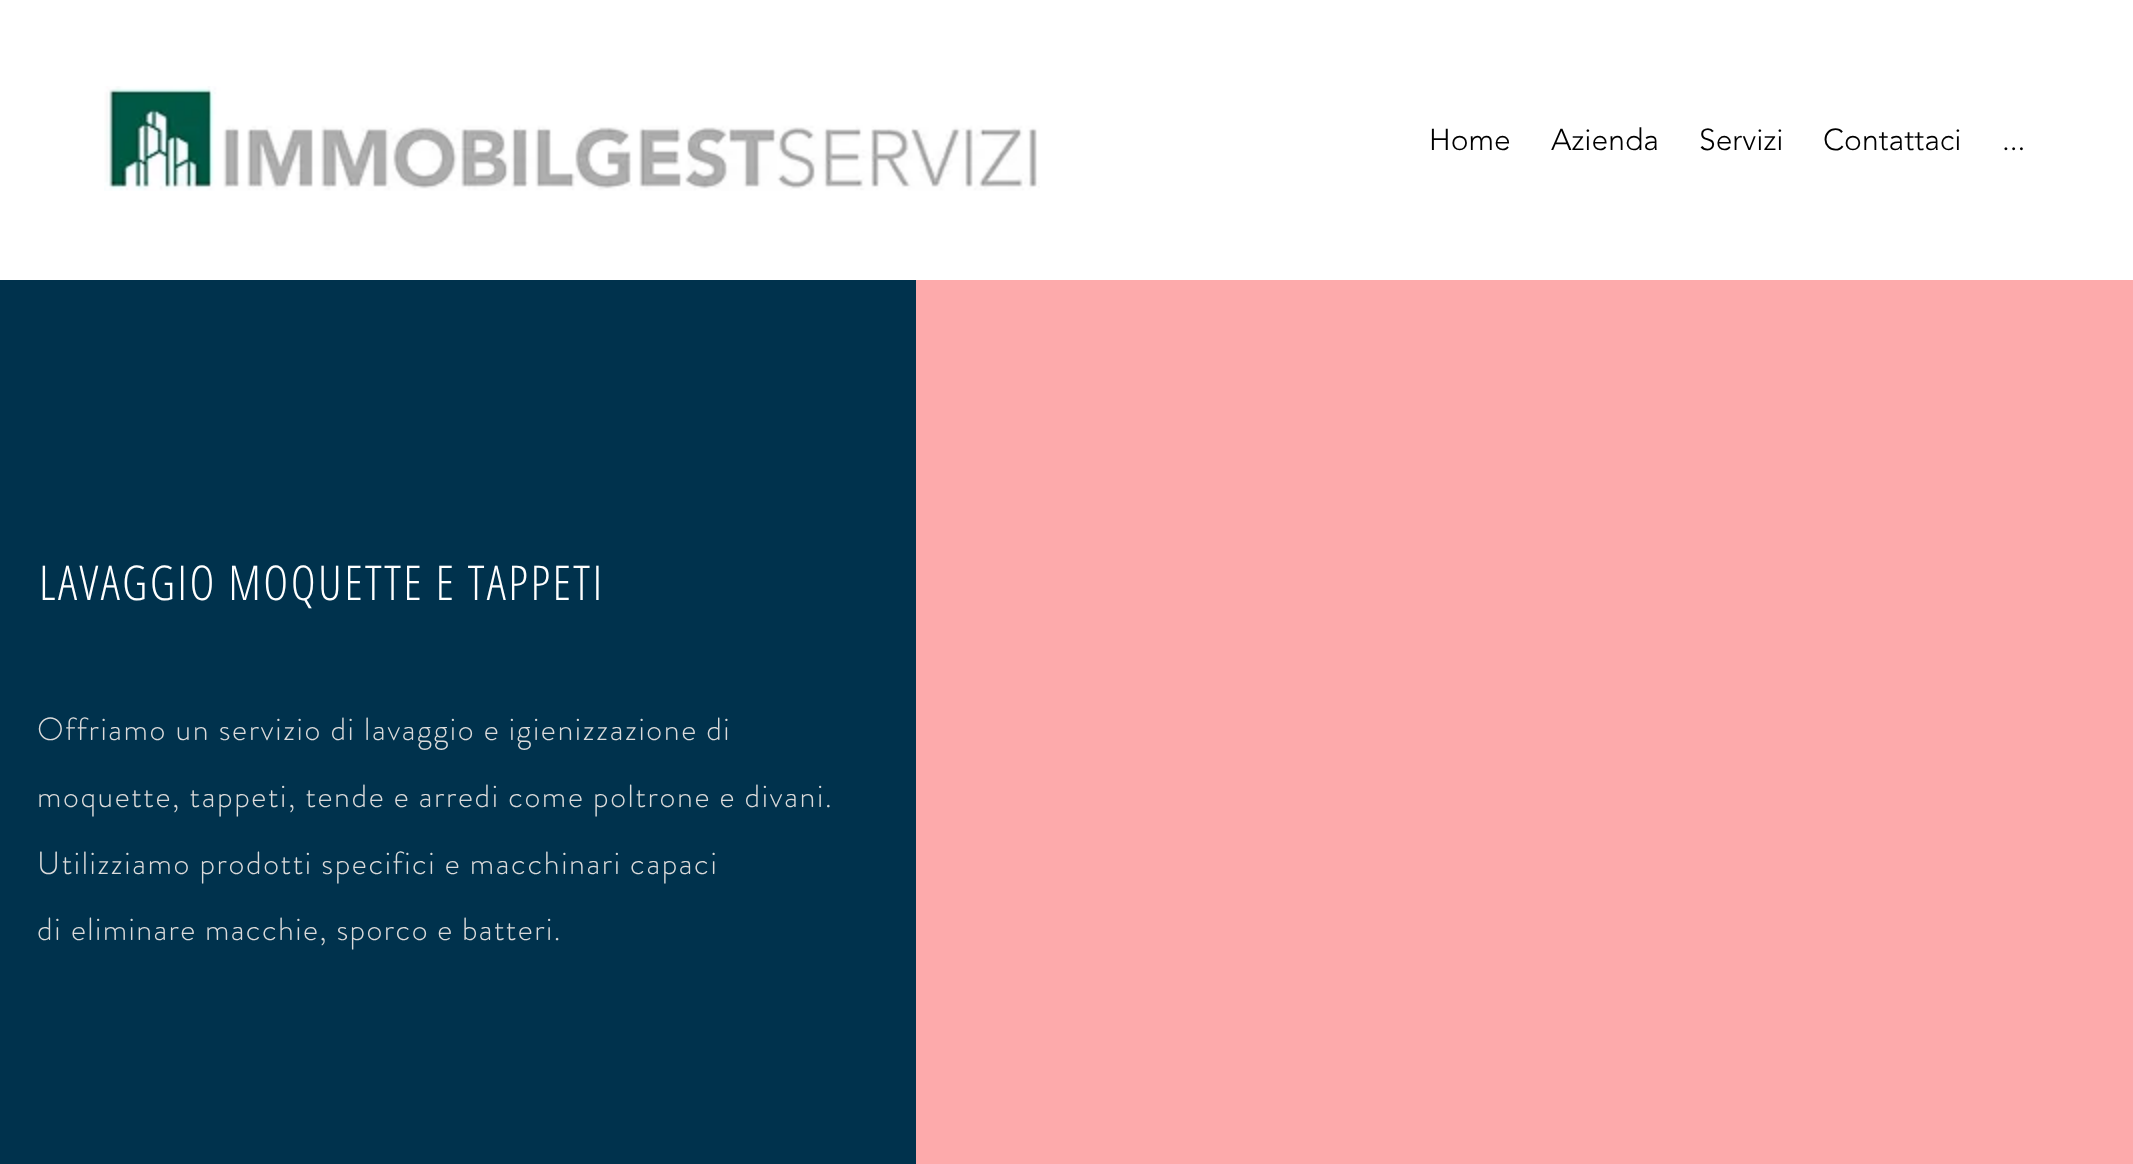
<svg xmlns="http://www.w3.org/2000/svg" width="2133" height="1164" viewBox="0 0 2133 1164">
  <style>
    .t1 { font: 300 30px 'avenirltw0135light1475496'; fill: #000; }
    .t2 { font: 300 48px Open Sans Condensed; letter-spacing: 2.4px; fill: #fff; }
    .t3 { font: 300 32px 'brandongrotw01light'; letter-spacing: 1.6px; fill: #dbdbdb; }
    .t4 { font: 300 32px 'brandongrotw01light'; letter-spacing: 1.4px; fill: #dbdbdb; }
  </style>
  <rect width="100%" height="100%" fill="#fff"/>
  <image x="104" y="86" width="936" height="105" href="images/1.png"/>
  <text x="1429" y="150" class="t1">Home</text>
  <text x="1551" y="150" class="t1">Azienda</text>
  <text x="1699" y="150" class="t1">Servizi</text>
  <text x="1823" y="150" class="t1">Contattaci</text>
  <text x="2002" y="150" class="t1">...</text>
  <rect x="0" y="280" width="916" height="884" fill="#00324d"/>
  <text x="39" y="600" class="t2">LAVAGGIO MOQUETTE E TAPPETI</text>
  <text x="37" y="740" class="t3">Offriamo un servizio di lavaggio e igienizzazione di</text>
  <text x="37" y="807" class="t3">moquette, tappeti, tende e arredi come poltrone e divani.</text>
  <text x="37" y="874" class="t3">Utilizziamo prodotti specifici e macchinari capaci</text>
  <text x="37" y="940" class="t3">di</text>
  <text x="71" y="940" class="t4">eliminare macchie, sporco e batteri.</text>
  <rect x="916" y="280" width="1217" height="884" fill="#fdaaab"/>
</svg>
